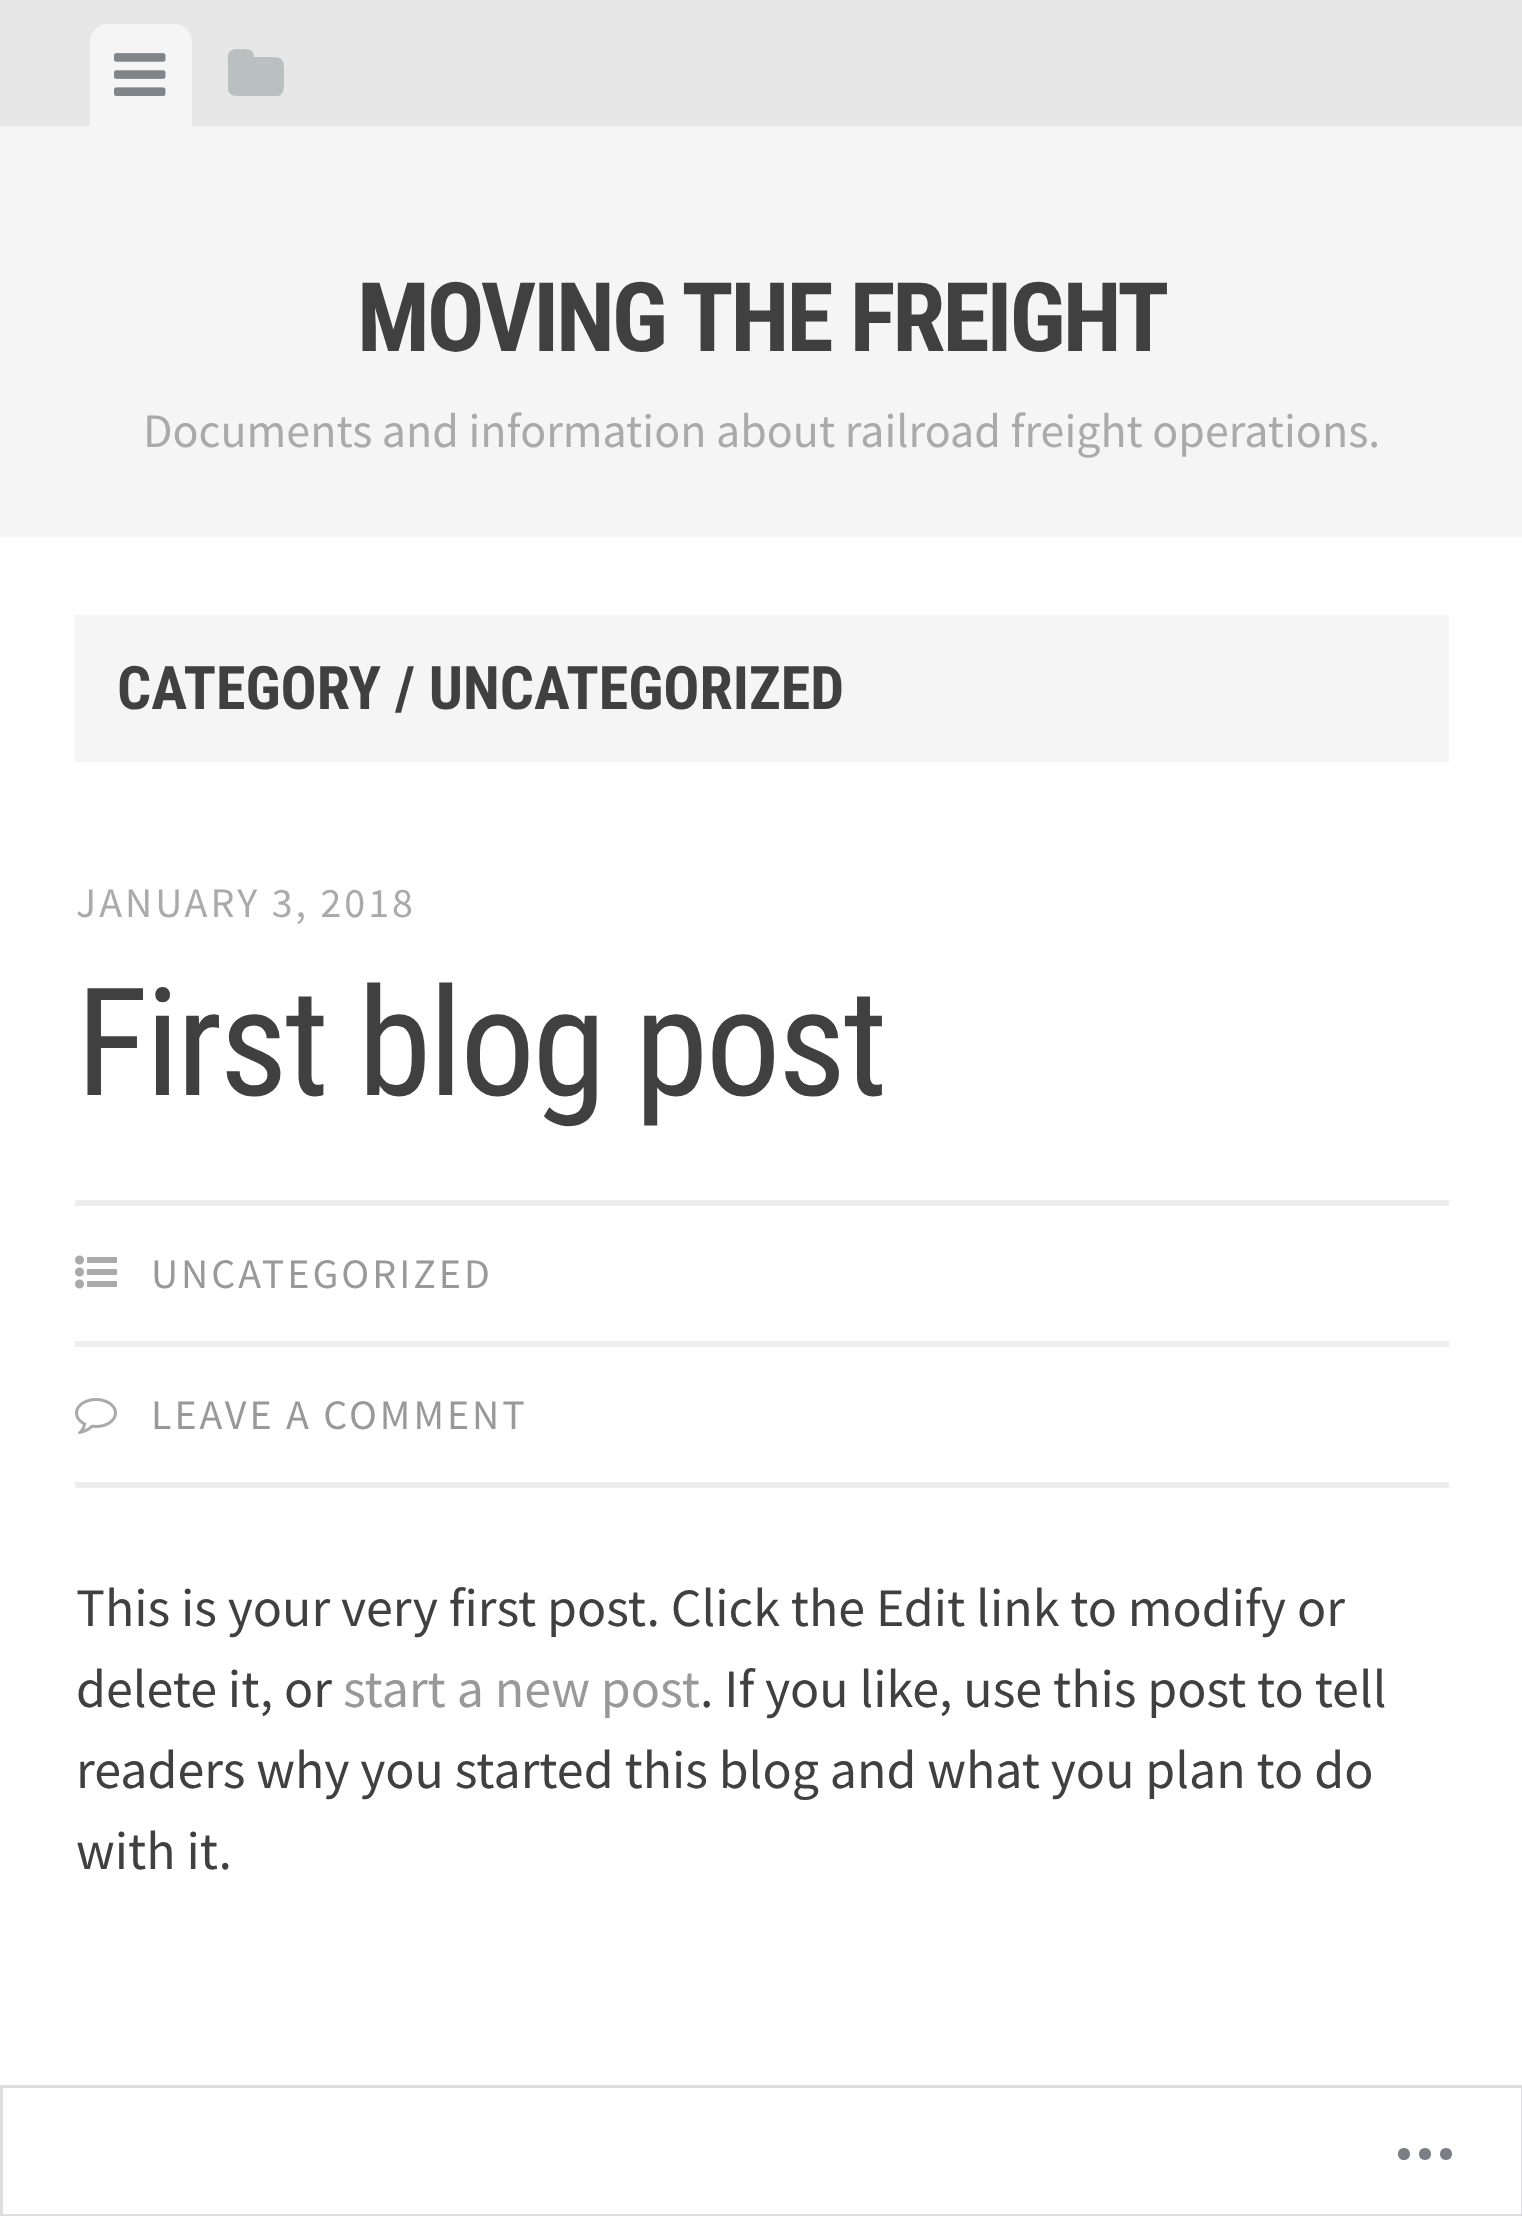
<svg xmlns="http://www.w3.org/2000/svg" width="1522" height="2216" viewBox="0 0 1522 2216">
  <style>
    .t1 { font: bold 96px Roboto Condensed; letter-spacing: -3px; fill: #404040; }
    .t2 { font: 48px Source Sans Pro; fill: #aaa; }
    .t3 { font: bold 60px Roboto Condensed; fill: #404040; }
    .t4 { font: 42px Source Sans Pro; letter-spacing: 3px; fill: #aaa; }
    .t5 { font: 150px Roboto Condensed; letter-spacing: -3px; fill: #404040; }
    .t6 { font: 42px Source Sans Pro; letter-spacing: 3px; fill: #999; }
    .t7 { font: 54px Source Sans Pro; fill: #404040; }
    .t8 { font: 54px Source Sans Pro; fill: #999; }
  </style>
  <rect width="100%" height="100%" fill="#fff"/>
  <rect x="0" y="126" width="1522" height="411" fill="#f5f5f5"/>
  <rect x="0" y="0" width="1522" height="126" fill="#e7e7e7"/>
  <path d="M108 24H174C184 24 192 32 192 42V126H90V42C90 32 98 24 108 24Z" fill="#f5f5f5"/>
  <image x="114" y="53" width="52" height="43" href="images/1.png"/>
  <path d="M228 88V67C228 53 226 49 241 49C248 49 254 49 254 57H272C285 57 284 62 284 73V85C284 89 283 95 278 96H242C237 96 228 97 228 88Z" fill="#babfc2"/>
  <text x="357" y="351" class="t1">MOVING THE FREIGHT</text>
  <text x="143" y="447" class="t2">Documents and information about railroad freight operations.</text>
  <rect x="75" y="615" width="1374" height="147" fill="#f5f5f5"/>
  <text x="117" y="709" class="t3">CATEGORY / UNCATEGORIZED</text>
  <text x="76" y="917" class="t4">JANUARY 3, 2018</text>
  <text x="76" y="1095" class="t5">First blog post</text>
  <rect x="75" y="1200" width="1374" height="6" fill="#eee"/>
  <rect x="75" y="1341" width="1374" height="6" fill="#eee"/>
  <image x="75" y="1255" width="42" height="34" href="images/2.png"/>
  <text x="151" y="1288" class="t6">UNCATEGORIZED</text>
  <rect x="75" y="1482" width="1374" height="6" fill="#eee"/>
  <image x="75" y="1398" width="42" height="36" href="images/3.png"/>
  <text x="151" y="1429" class="t6">LEAVE A COMMENT</text>
  <text x="76" y="1626" class="t7">This is your very first post. Click the Edit link to modify or</text>
  <text x="76" y="1707" class="t7">delete it, or</text>
  <text x="343" y="1707" class="t8">start a new post</text>
  <text x="700" y="1707" class="t7">. If you like, use this post to tell</text>
  <text x="76" y="1788" class="t7">readers why you started this blog and what you plan to do</text>
  <text x="76" y="1869" class="t7">with it.</text>
  <rect x="1.5" y="2086.5" width="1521" height="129" fill="none" stroke="#dddddf" stroke-width="3"/>
  <path d="M1410 2154C1410 2162 1398 2162 1398 2154C1398 2146 1410 2146 1410 2154ZM1446 2148C1438 2148 1438 2160 1446 2160C1454 2160 1454 2148 1446 2148ZM1425 2148C1417 2148 1417 2160 1425 2160C1433 2160 1433 2148 1425 2148Z" fill="#7b7f85"/>
</svg>
